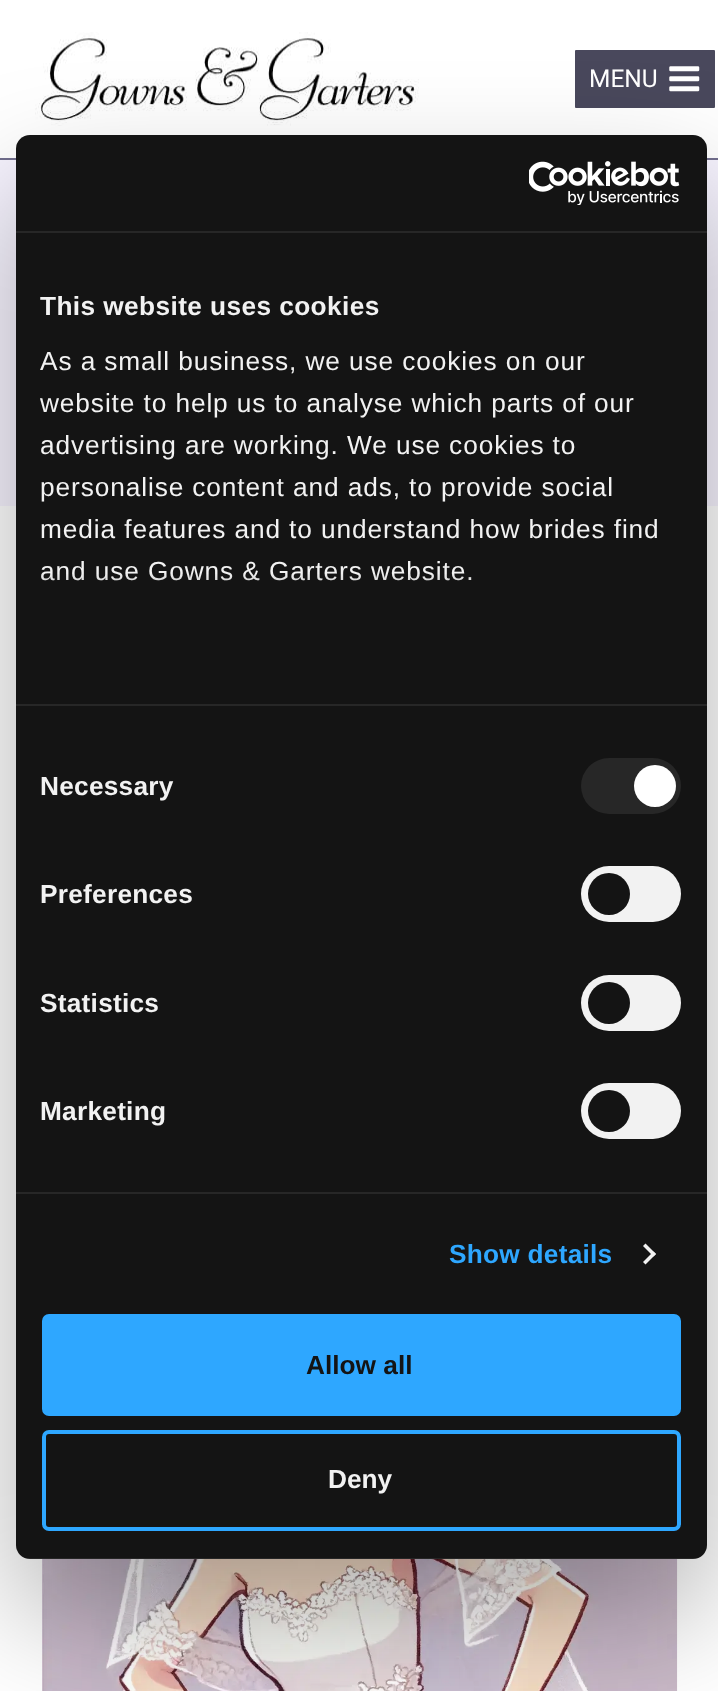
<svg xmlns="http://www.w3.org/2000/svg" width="718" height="1691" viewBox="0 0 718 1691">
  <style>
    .t1 { font: 24.5px Roboto; fill: #fff; }
    .t2 { font: bold 26.25px Liberation Sans; letter-spacing: 0.4px; fill: #f2f2f2; }
    .t3 { font: 26.25px Liberation Sans; letter-spacing: 0.9px; fill: #f2f2f2; }
    .t4 { font: bold 26.25px Liberation Sans; letter-spacing: 0.25px; fill: #f2f2f2; }
    .t5 { font: bold 26.25px Liberation Sans; letter-spacing: 0.25px; fill: #2ea7ff; }
    .t6 { font: bold 26.25px Liberation Sans; fill: #141414; }
    .t7 { font: bold 26.25px Liberation Sans; fill: #f2f2f2; }
  </style>
  <defs>
    <linearGradient id="g1" gradientUnits="userSpaceOnUse" x1="349" y1="704" x2="349" y2="572"><stop offset="0" stop-color="#141414"/><stop offset="0.5" stop-color="#141414" stop-opacity="0.8"/><stop offset="1" stop-color="#141414" stop-opacity="0"/></linearGradient>
    <clipPath id="clip1"><rect x="16" y="135" width="691" height="1424" rx="14"/></clipPath>
  </defs>
  <rect width="100%" height="100%" fill="#fff"/>
  <rect x="0" y="158" width="718" height="2" fill="#726f8e"/>
  <image x="35" y="32" width="384" height="94" href="images/1.png"/>
  <rect x="573" y="48" width="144" height="62" rx="3" fill="#49485c" stroke="#fff" stroke-width="4"/>
  <text x="589" y="87" class="t1">MENU</text>
  <image x="669" y="66" width="31" height="26" href="images/2.png"/>
  <rect x="0" y="160" width="718" height="346" fill="#f7f4ff"/>
  <image x="42" y="1559" width="636" height="132" href="images/3.png"/>
  <rect x="16" y="191" width="691" height="1424" rx="14" fill="#0000004d" filter="blur(59.5px)"/>
  <rect x="16" y="135" width="691" height="1424" rx="14" fill="#141414"/>
  <rect x="16" y="231" width="691" height="2" fill="#272727"/>
  <image x="529" y="161" width="151" height="44" href="images/4.png"/>
  <rect x="16" y="704" width="691" height="2" fill="#272727"/>
  <text x="40" y="315" class="t2">This website uses cookies</text>
  <text x="40" y="370" class="t3">As a small business, we use cookies on our</text>
  <text x="40" y="412" class="t3">website to help us to analyse which parts of our</text>
  <text x="40" y="454" class="t3">advertising are working. We use cookies to</text>
  <text x="40" y="496" class="t3">personalise content and ads, to provide social</text>
  <text x="40" y="538" class="t3">media features and to understand how brides find</text>
  <text x="40" y="580" class="t3">and use Gowns &amp; Garters website.</text>
  <rect x="41" y="574" width="430" height="7" fill="url(#g1)"/>
  <rect x="16" y="1192" width="691" height="2" fill="#272727"/>
  <text x="40" y="795" class="t4">Necessary</text>
  <rect x="581" y="758" width="100" height="56" rx="28" fill="#272727"/>
  <circle cx="655" cy="786" r="21" fill="#fff"/>
  <text x="40" y="903" class="t4">Preferences</text>
  <rect x="581" y="866" width="100" height="56" rx="28" fill="#f2f2f2"/>
  <circle cx="609" cy="894" r="21" fill="#141414"/>
  <text x="40" y="1012" class="t4">Statistics</text>
  <rect x="581" y="975" width="100" height="56" rx="28" fill="#f2f2f2"/>
  <circle cx="609" cy="1003" r="21" fill="#141414"/>
  <text x="40" y="1120" class="t4">Marketing</text>
  <rect x="581" y="1083" width="100" height="56" rx="28" fill="#f2f2f2"/>
  <circle cx="609" cy="1111" r="21" fill="#141414"/>
  <text x="449" y="1263" class="t5">Show details</text>
  <path d="M645.5 1243.5L656 1254L653.5 1256.5L643 1246Z" fill="#f2f2f2"/>
  <path d="M653.5 1251.5L656 1254L645.5 1264.5L643 1262Z" fill="#f2f2f2"/>
  <g clip-path="url(#clip1)">
    <rect x="26" y="1558" width="671" height="1" fill="#ffffff14"/>
  </g>
  <rect x="44" y="1316" width="635" height="98" rx="5" fill="#2ea7ff" stroke="#2ea7ff" stroke-width="4"/>
  <text x="306" y="1374" class="t6">Allow all</text>
  <rect x="44" y="1432" width="635" height="97" rx="5" fill="none" stroke="#2ea7ff" stroke-width="4"/>
  <text x="328" y="1488" class="t7">Deny</text>
</svg>
